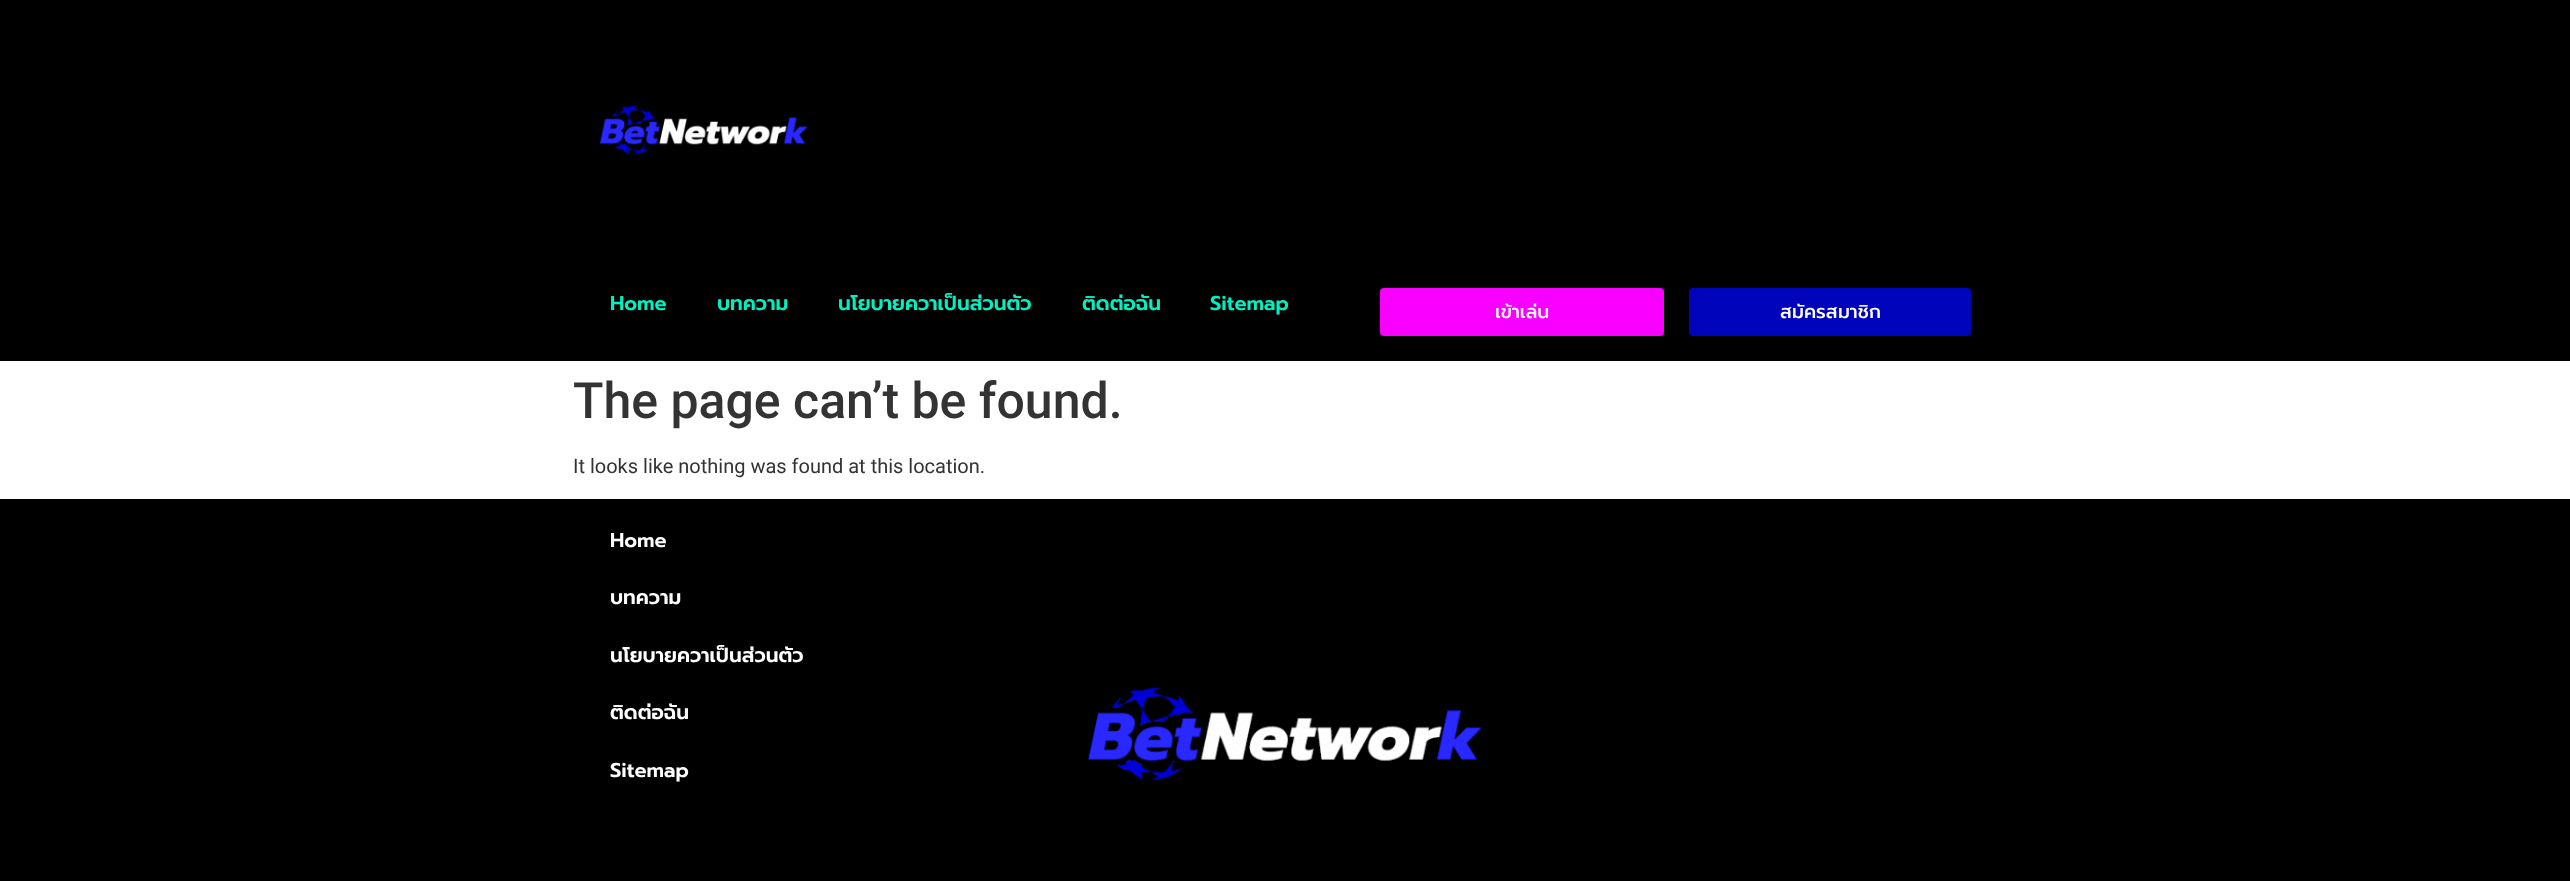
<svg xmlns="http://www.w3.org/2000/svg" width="2570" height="881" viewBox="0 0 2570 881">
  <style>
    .t1 { font: 600 20px Prompt; fill: #00f0c1; }
    .t2 { font: 500 18.75px Prompt; fill: #fff; }
    .t3 { font: 500 50px Roboto; fill: #333; }
    .t4 { font: 20px Roboto; fill: #333; }
    .t5 { font: 600 20px Prompt; fill: #fff; }
  </style>
  <rect width="100%" height="100%" fill="#fff"/>
  <rect x="0" y="0" width="2570" height="361" fill="#000"/>
  <image x="599" y="105" width="209" height="50" href="images/1.png"/>
  <text x="610" y="310" class="t1">Home</text>
  <text x="717" y="310" class="t1">บทความ</text>
  <text x="838" y="310" class="t1">นโยบายควาเป็นส่วนตัว</text>
  <text x="1082" y="310" class="t1">ติดต่อฉัน</text>
  <text x="1210" y="310" class="t1">Sitemap</text>
  <rect x="1380" y="288" width="284" height="48" rx="4" fill="#f700ff"/>
  <text x="1495" y="318" class="t2">เข้าเล่น</text>
  <rect x="1689" y="288" width="282" height="48" rx="4" fill="#0004bb"/>
  <text x="1780" y="318" class="t2">สมัครสมาชิก</text>
  <text x="573" y="418" class="t3">The page can’t be found.</text>
  <text x="573" y="473" class="t4">It looks like nothing was found at this location.</text>
  <rect x="0" y="499" width="2570" height="382" fill="#000"/>
  <text x="610" y="547" class="t5">Home</text>
  <text x="610" y="604" class="t5">บทความ</text>
  <text x="610" y="662" class="t5">นโยบายควาเป็นส่วนตัว</text>
  <text x="610" y="719" class="t5">ติดต่อฉัน</text>
  <text x="610" y="777" class="t5">Sitemap</text>
  <image x="1087" y="687" width="396" height="94" href="images/2.png"/>
</svg>
